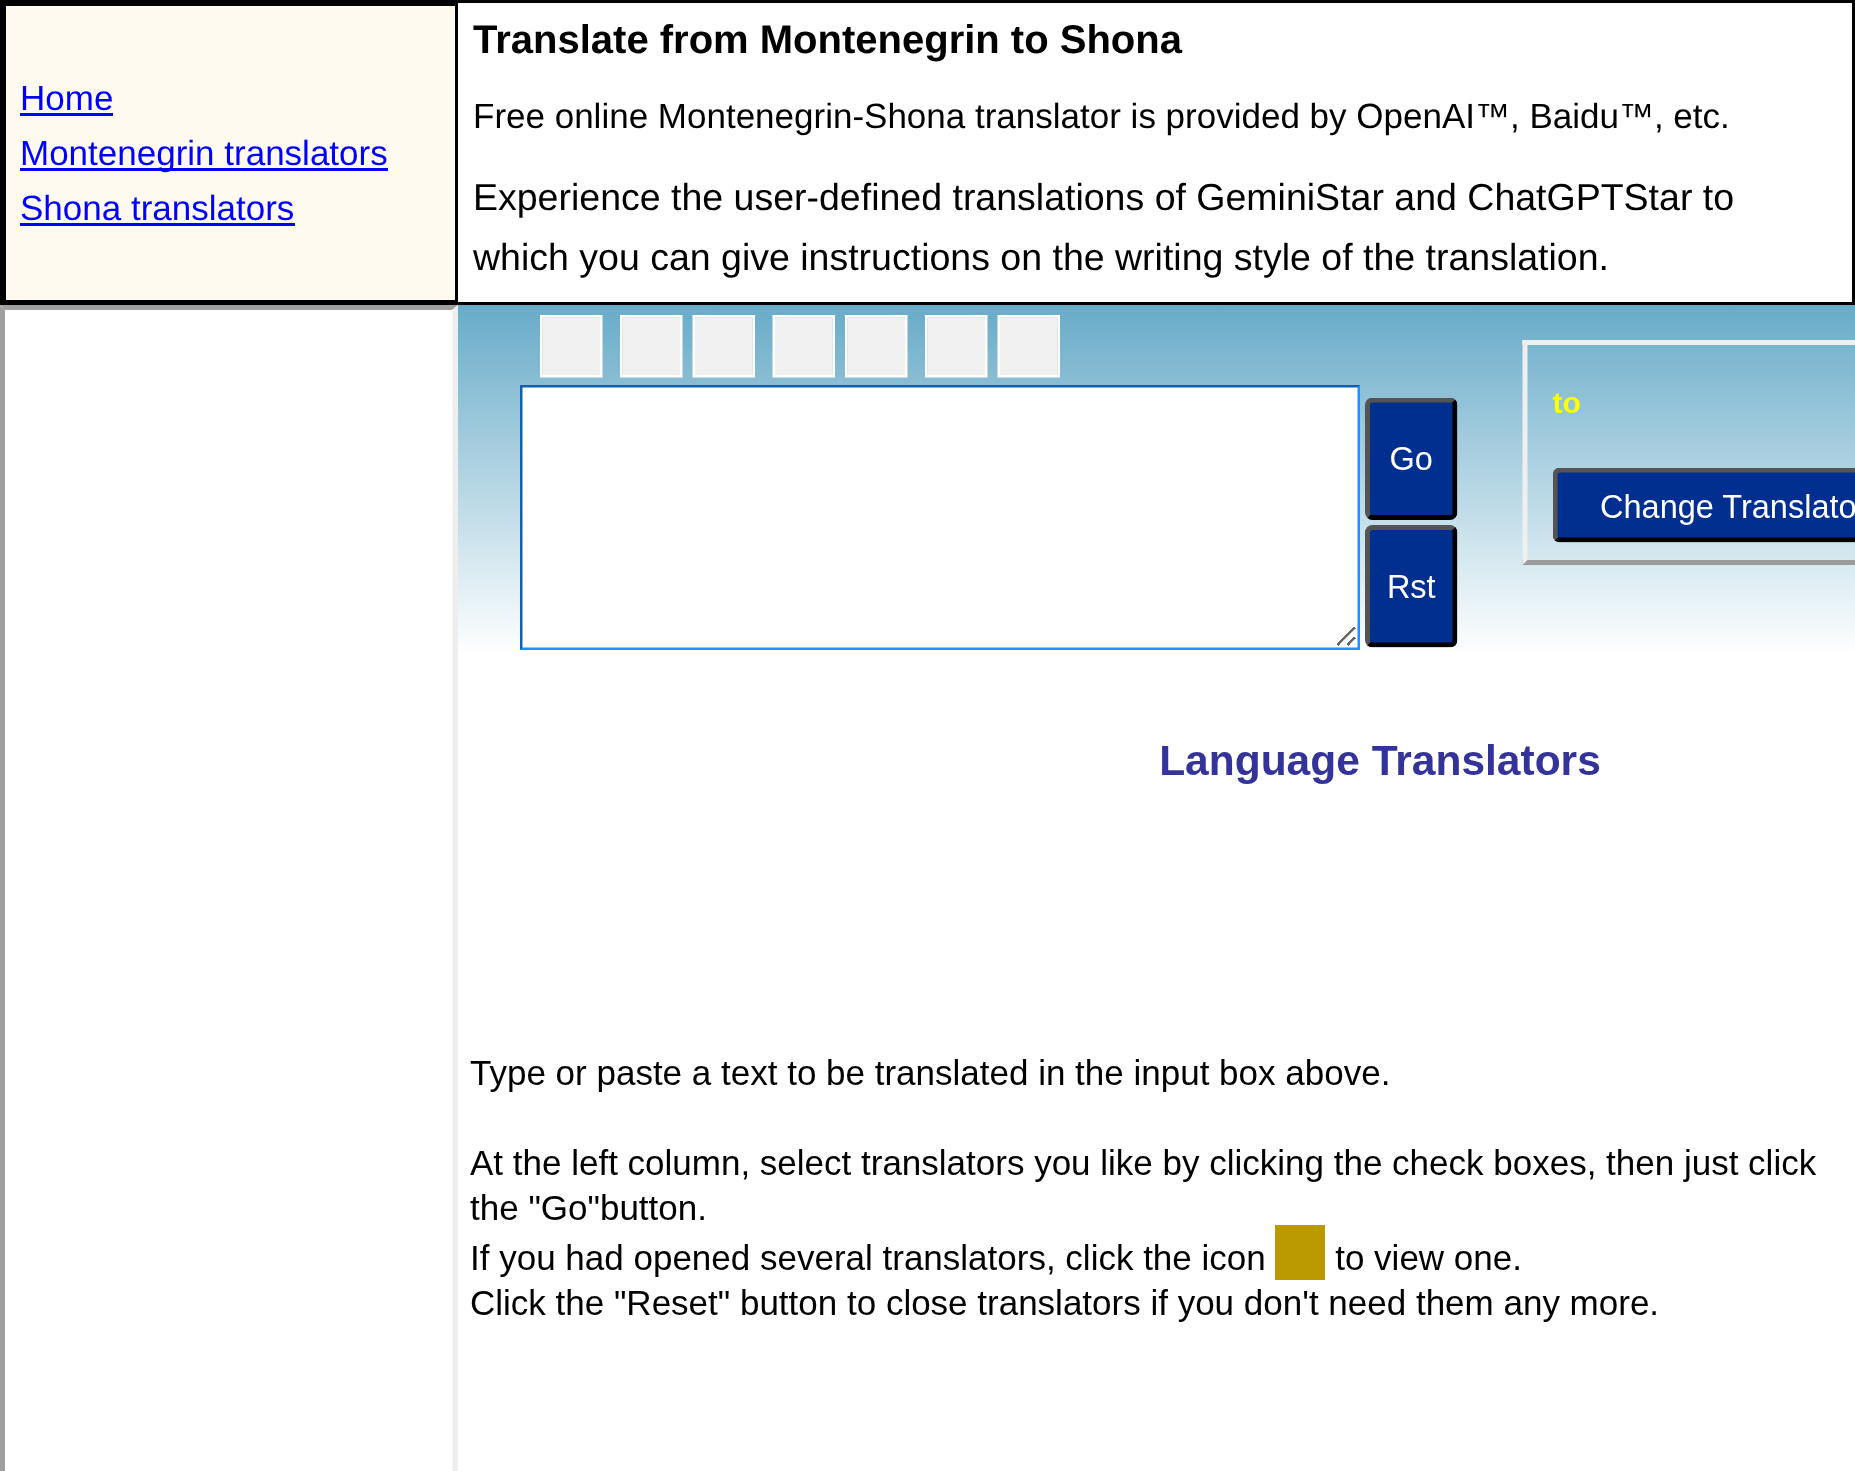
<svg xmlns="http://www.w3.org/2000/svg" width="1855" height="1471" viewBox="0 0 1855 1471">
  <style>
    .t1 { font: 35px Liberation Sans; fill: #00f; }
    .t2 { font: bold 40px Liberation Sans; fill: #000; }
    .t3 { font: 35px Liberation Sans; fill: #000; }
    .t4 { font: 37.5px Liberation Sans; fill: #000; }
  </style>
  <rect width="100%" height="100%" fill="#fff"/>
  <rect x="1.5" y="1.5" width="1852" height="302" fill="none" stroke="#000" stroke-width="3"/>
  <rect x="4.5" y="4.5" width="452" height="297" fill="#fefaef" stroke="#000" stroke-width="3"/>
  <text x="20" y="110" class="t1">Home</text>
  <rect x="20" y="113" width="93" height="3" fill="#00f"/>
  <rect x="20" y="168" width="368" height="3" fill="#00f"/>
  <text x="20" y="165" class="t1">Montenegrin translators</text>
  <text x="20" y="220" class="t1">Shona translators</text>
  <rect x="20" y="223" width="275" height="3" fill="#00f"/>
  <text x="473" y="53" class="t2">Translate from Montenegrin to Shona</text>
  <text x="473" y="128" class="t3">Free online Montenegrin-Shona translator is provided by OpenAI™, Baidu™, etc.</text>
  <text x="473" y="210" class="t4">Experience the user-defined translations of GeminiStar and ChatGPTStar to</text>
  <text x="473" y="270" class="t4">which you can give instructions on the writing style of the translation.</text>
  <path d="M0 305H458L452 310H5Z" fill="#9f9f9f"/>
  <path d="M0 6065V305L5 310V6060Z" fill="#9f9f9f"/>
  <path d="M458 305V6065L452 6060V310Z" fill="#eee"/>
  <rect x="452" y="310" width="1" height="1161" fill="#f7f7f7"/>
  <image x="458" y="305" width="1397" height="345" href="images/1.png"/>
  <image x="470" y="744" width="1347" height="578" href="images/2.png"/>
</svg>
